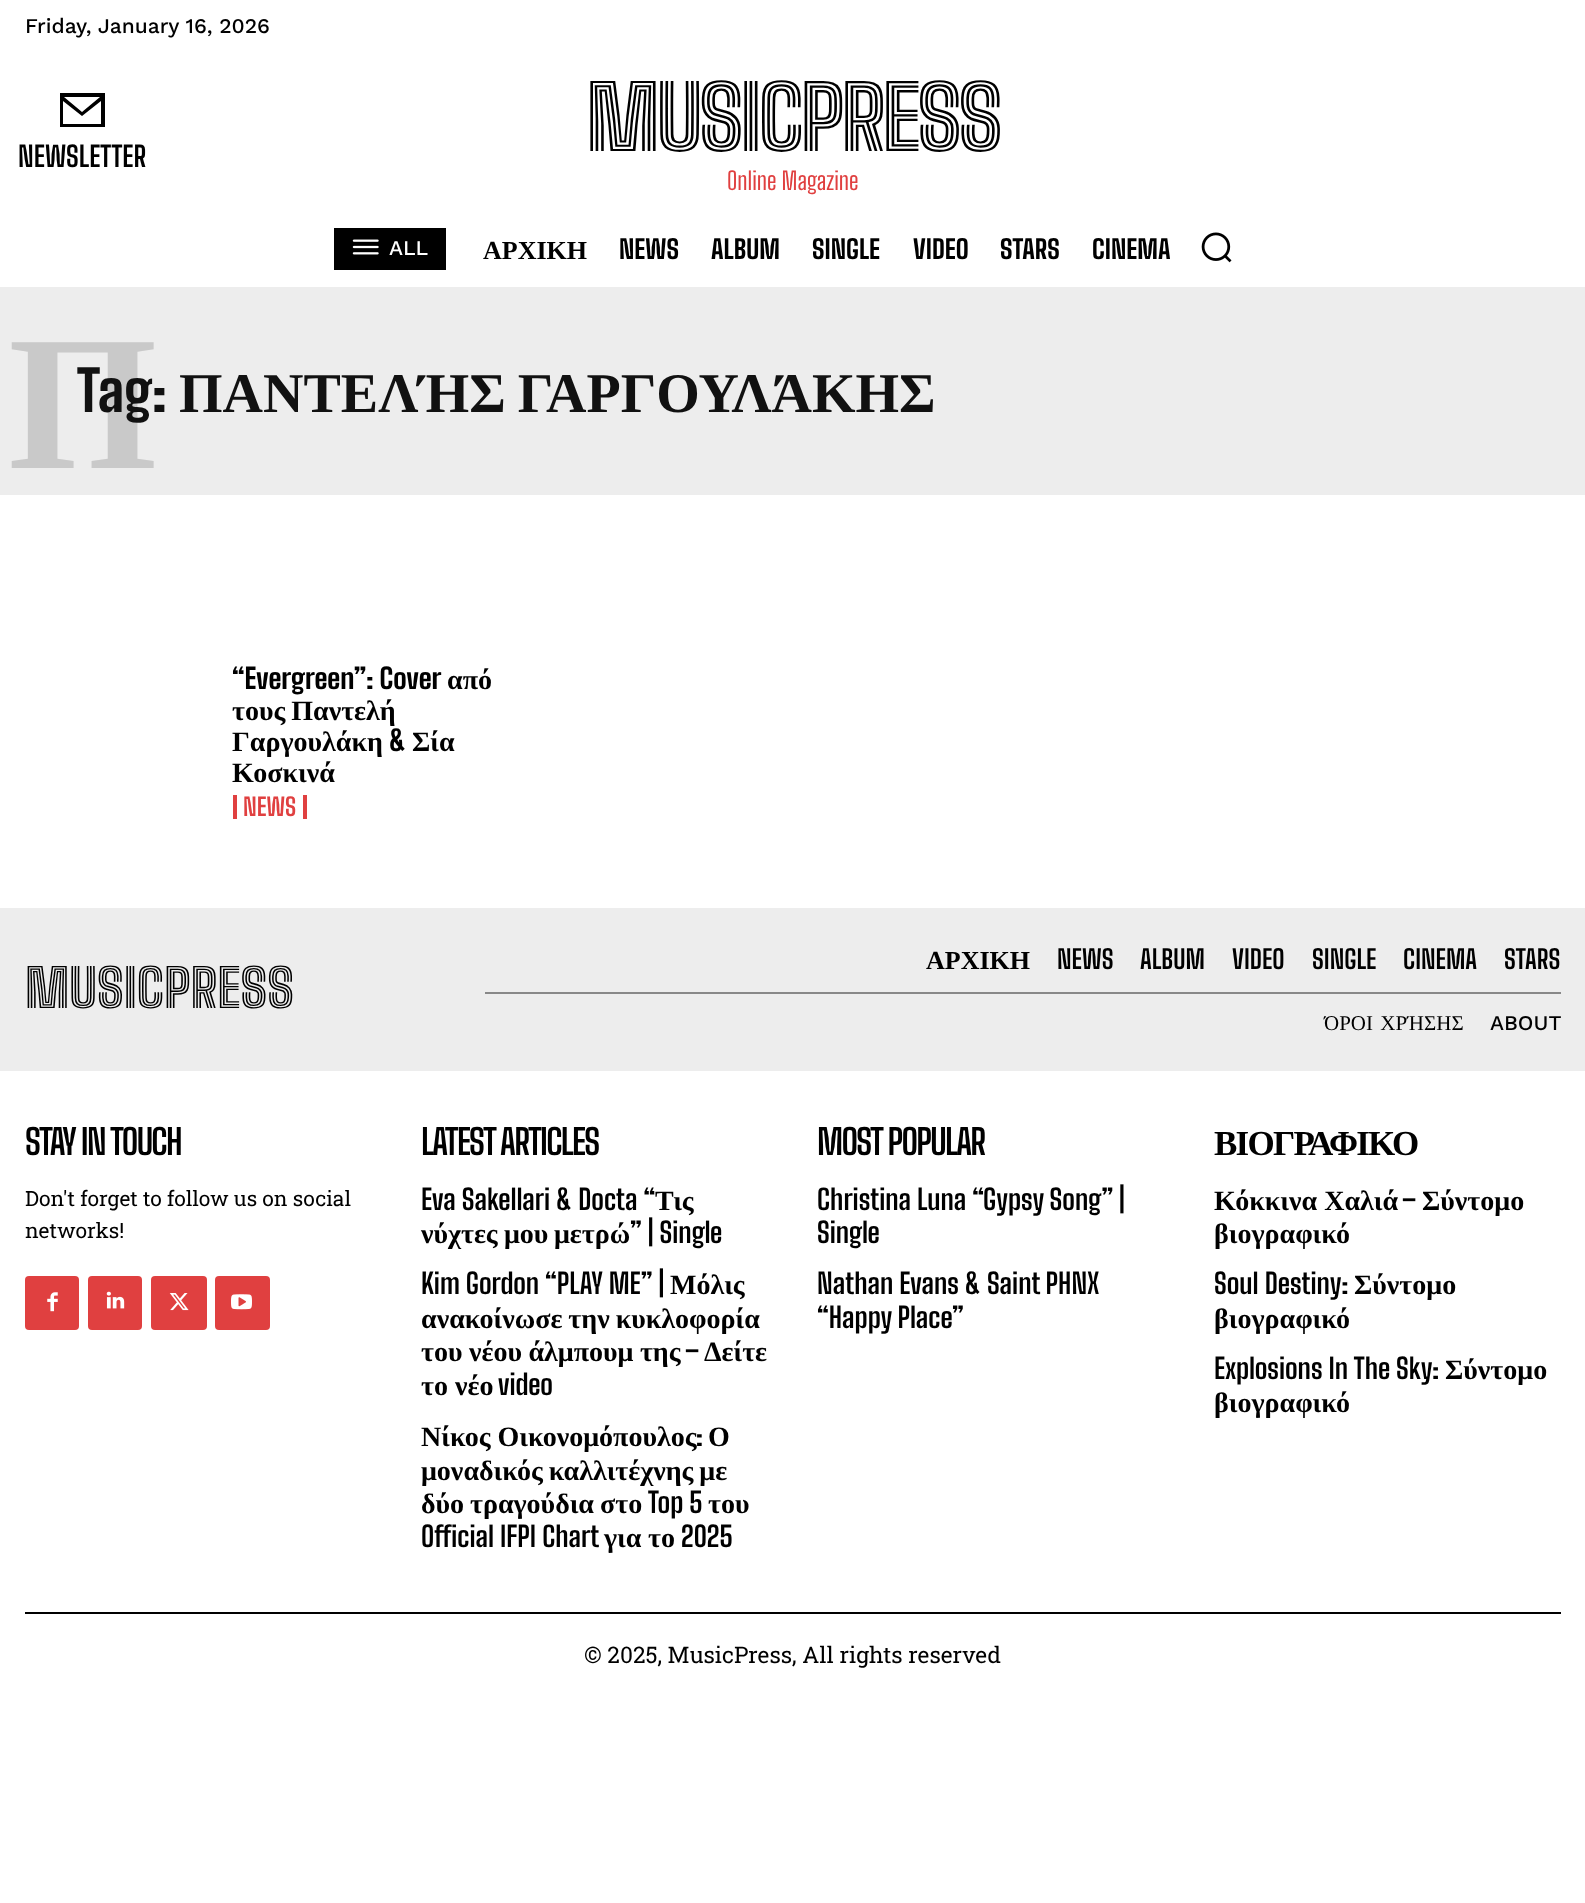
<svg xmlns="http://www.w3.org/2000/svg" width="1585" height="1903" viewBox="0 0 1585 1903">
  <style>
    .t1 { font: 500 21px Work Sans; fill: #000; }
    .t2 { font: bold 28px Big Shoulders Text; fill: #000; }
    .t3 { font: 900 87.5px Big Shoulders Inline Text; letter-spacing: -3.5px; fill: #000; }
    .t4 { font: 24.5px Big Shoulders Text; fill: #e04040; }
    .t5 { font: 500 21px Work Sans; fill: #fff; }
    .t6 { font: bold 26px Liberation Serif; fill: #000; }
    .t7 { font: 800 26px Big Shoulders Text; fill: #000; }
    .t8 { font: bold 192px Liberation Serif; fill: #c9c9c9; }
    .t9 { font: 800 56px Big Shoulders Text; fill: #111; }
    .t10 { font: bold 56px Liberation Serif; fill: #111; }
    .t11 { font: 800 28px Big Shoulders Text; fill: #000; }
    .t12 { font: bold 28px Liberation Serif; fill: #000; }
    .t13 { font: bold 24.5px Big Shoulders Text; fill: #e04040; }
    .t14 { font: 900 52.5px Big Shoulders Inline Text; fill: #000; }
    .t15 { font: bold 26px Big Shoulders Text; fill: #000; }
    .t16 { font: 21px Liberation Serif; fill: #000; }
    .t17 { font: bold 35px Big Shoulders Text; letter-spacing: -1.75px; fill: #000; }
    .t18 { font: 21px Roboto Slab; fill: #000; }
    .t19 { font: bold 35px Liberation Serif; letter-spacing: -1.75px; fill: #000; }
    .t20 { font: 22.75px Roboto Slab; fill: #000; }
  </style>
  <rect width="100%" height="100%" fill="#fff"/>
  <text x="25" y="33" class="t1">Friday, January 16, 2026</text>
  <path d="M60 93V127H105V93ZM100 97L82 112L64 97ZM63 124V101L82 116L101 101V124Z" fill="#000"/>
  <text x="18" y="167" class="t2">NEWSLETTER</text>
  <text x="586" y="151" class="t3">MUSICPRESS</text>
  <text x="727" y="190" class="t4">Online Magazine</text>
  <rect x="334" y="228" width="112" height="42" fill="#000"/>
  <image x="352" y="239" width="27" height="16" href="images/1.png"/>
  <text x="389" y="255" class="t5">ALL</text>
  <text x="483" y="259" class="t6">ΑΡΧΙΚΗ</text>
  <text x="619" y="259" class="t7">NEWS</text>
  <text x="711" y="259" class="t7">ALBUM</text>
  <text x="812" y="259" class="t7">SINGLE</text>
  <text x="913" y="259" class="t7">VIDEO</text>
  <text x="1000" y="259" class="t7">STARS</text>
  <text x="1092" y="259" class="t7">CINEMA</text>
  <image x="1201" y="232" width="31" height="31" href="images/2.png"/>
  <rect x="0" y="287" width="1585" height="208" fill="#ededed"/>
  <text x="8" y="468" class="t8">Π</text>
  <text x="77" y="412" class="t9">Tag:</text>
  <text x="179" y="412" word-spacing="-2" class="t10">ΠΑΝΤΕΛΉΣ ΓΑΡΓΟΥΛΆΚΗΣ</text>
  <text x="232" y="689" class="t11">“Evergreen”: Cover</text>
  <text x="447" y="689" class="t12">από</text>
  <text x="232" y="720" word-spacing="-1" class="t12">τους Παντελή</text>
  <text x="232" y="751" class="t12">Γαργουλάκη</text>
  <text x="389" y="751" class="t11">&amp;</text>
  <text x="412" y="751" class="t12">Σία</text>
  <text x="232" y="782" class="t12">Κοσκινά</text>
  <rect x="303" y="795" width="4" height="24" fill="#e04040"/>
  <rect x="233" y="795" width="4" height="24" fill="#e04040"/>
  <text x="243" y="816" class="t13">NEWS</text>
  <rect x="0" y="908" width="1585" height="163" fill="#ededed"/>
  <text x="25" y="1008" class="t14">MUSICPRESS</text>
  <rect x="485" y="992" width="1076" height="2" fill="#888"/>
  <text x="926" y="969" class="t6">ΑΡΧΙΚΗ</text>
  <text x="1057" y="969" class="t15">NEWS</text>
  <text x="1140" y="969" class="t15">ALBUM</text>
  <text x="1232" y="969" class="t15">VIDEO</text>
  <text x="1312" y="969" class="t15">SINGLE</text>
  <text x="1403" y="969" class="t15">CINEMA</text>
  <text x="1504" y="969" class="t15">STARS</text>
  <text x="1324" y="1030" word-spacing="2" class="t16">ΌΡΟΙ ΧΡΉΣΗΣ</text>
  <text x="1490" y="1030" class="t1">ABOUT</text>
  <text x="25" y="1155" class="t17">STAY IN TOUCH</text>
  <text x="25" y="1206" class="t18">Don't forget to follow us on social</text>
  <text x="25" y="1238" class="t18">networks!</text>
  <rect x="25" y="1276" width="54" height="54" rx="4" fill="#e04040"/>
  <image x="47" y="1292" width="11" height="20" href="images/3.png"/>
  <rect x="88" y="1276" width="54" height="54" rx="4" fill="#e04040"/>
  <image x="106" y="1291" width="19" height="18" href="images/4.png"/>
  <rect x="151" y="1276" width="56" height="54" rx="4" fill="#e04040"/>
  <image x="169" y="1293" width="20" height="18" href="images/5.png"/>
  <rect x="215" y="1276" width="55" height="54" rx="4" fill="#e04040"/>
  <image x="231" y="1294" width="21" height="16" href="images/6.png"/>
  <text x="421" y="1155" class="t17">LATEST ARTICLES</text>
  <text x="421" y="1210" class="t2">Eva Sakellari &amp; Docta “</text>
  <text x="655" y="1210" class="t12">Τις</text>
  <text x="421" y="1243" class="t12">νύχτες</text>
  <text x="504" y="1243" class="t12">μου</text>
  <text x="554" y="1243" class="t12">μετρώ</text>
  <text x="630" y="1243" class="t2">” | Single</text>
  <text x="421" y="1294" class="t2">Kim Gordon “PLAY ME” |</text>
  <text x="670" y="1294" class="t12">Μόλις</text>
  <text x="421" y="1328" word-spacing="-1" class="t12">ανακοίνωσε την κυκλοφορία</text>
  <text x="421" y="1361" word-spacing="-0.5" class="t12">του νέου άλμπουμ της</text>
  <text x="685" y="1361" class="t2">–</text>
  <text x="704" y="1361" class="t12">Δείτε</text>
  <text x="421" y="1395" class="t12">το νέο</text>
  <text x="498" y="1395" class="t2">video</text>
  <text x="421" y="1446" class="t12">Νίκος Οικονομόπουλος</text>
  <text x="696" y="1446" class="t2">:</text>
  <text x="708" y="1446" class="t12">Ο</text>
  <text x="421" y="1480" word-spacing="-1" class="t12">μοναδικός καλλιτέχνης με</text>
  <text x="421" y="1513" class="t12">δύο</text>
  <text x="470" y="1513" class="t12">τραγούδια</text>
  <text x="600" y="1513" class="t12">στο</text>
  <text x="648" y="1513" class="t2">Top 5</text>
  <text x="708" y="1513" class="t12">του</text>
  <text x="421" y="1547" class="t2">Official IFPI Chart</text>
  <text x="604" y="1547" class="t12">για</text>
  <text x="648" y="1547" class="t12">το</text>
  <text x="681" y="1547" class="t2">2025</text>
  <text x="817" y="1155" class="t17">MOST POPULAR</text>
  <text x="817" y="1210" class="t2">Christina Luna “Gypsy Song” |</text>
  <text x="817" y="1243" class="t2">Single</text>
  <text x="817" y="1294" class="t2">Nathan Evans &amp; Saint PHNX</text>
  <text x="817" y="1328" class="t2">“Happy Place”</text>
  <text x="1214" y="1155" class="t19">ΒΙΟΓΡΑΦΙΚΟ</text>
  <text x="1214" y="1210" class="t12">Κόκκινα Χαλιά</text>
  <text x="1402" y="1210" class="t2">–</text>
  <text x="1422" y="1210" class="t12">Σύντομο</text>
  <text x="1214" y="1243" class="t12">βιογραφικό</text>
  <text x="1214" y="1294" class="t2">Soul Destiny:</text>
  <text x="1354" y="1294" class="t12">Σύντομο</text>
  <text x="1214" y="1328" class="t12">βιογραφικό</text>
  <text x="1214" y="1379" class="t2">Explosions In The Sky:</text>
  <text x="1445" y="1379" class="t12">Σύντομο</text>
  <text x="1214" y="1412" class="t12">βιογραφικό</text>
  <rect x="25" y="1612" width="1536" height="2" fill="#000"/>
  <text x="584" y="1663" class="t20">© 2025, MusicPress, All rights reserved</text>
</svg>
